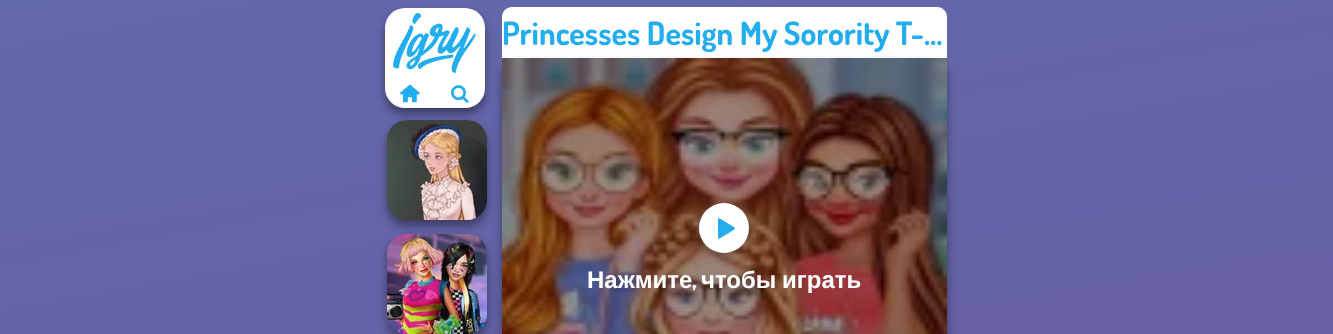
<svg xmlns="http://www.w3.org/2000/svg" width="1333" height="334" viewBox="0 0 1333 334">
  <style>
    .t1 { font: bold 32px Dosis; fill: #23adee; }
    .t2 { font: bold 24px Liberation Sans; fill: #fff; }
    .t3 { font: bold 24px Dosis; fill: #fff; }
  </style>
  <defs>
    <linearGradient id="g1" gradientUnits="userSpaceOnUse" x1="456" y1="-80" x2="877" y2="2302"><stop offset="0" stop-color="#6269ac"/><stop offset="1" stop-color="#73408b"/></linearGradient>
  </defs>
  <rect width="100%" height="100%" fill="#fff"/>
  <rect x="0" y="0" width="1333" height="334" fill="url(#g1)"/>
  <rect x="385" y="14" width="100" height="100" rx="20" fill="#00000066" filter="blur(5px)"/>
  <rect x="385" y="8" width="100" height="100" rx="20" fill="#fff"/>
  <image x="393" y="13" width="83" height="60" href="images/1.png"/>
  <image x="400" y="84" width="20" height="19" href="images/2.png"/>
  <image x="451" y="85" width="18" height="18" href="images/3.png"/>
  <rect x="387" y="126" width="100" height="100" rx="20" fill="#00000066" filter="blur(5px)"/>
  <image x="387" y="120" width="100" height="100" href="images/4.png"/>
  <rect x="387" y="240" width="100" height="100" rx="20" fill="#00000066" filter="blur(5px)"/>
  <image x="387" y="234" width="100" height="100" href="images/5.png"/>
  <path d="M512 7H937C942.5 7 947 11.5 947 17V67H502V17C502 11.5 506.5 7 512 7Z" fill="#fff"/>
  <text x="502" y="45" class="t1">Princesses Design My Sorority T-…</text>
  <rect x="502" y="64" width="445" height="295" rx="10" fill="#00000066" filter="blur(5px)"/>
  <image x="502" y="58" width="445" height="276" href="images/6.png"/>
  <rect x="699" y="205" width="50" height="50" rx="25" fill="#6f6f6f80" filter="blur(7.5px)"/>
  <circle cx="724" cy="228" r="25" fill="#fff"/>
  <image x="718" y="218" width="18" height="21" href="images/7.png"/>
  <text x="587" y="288" class="t2">Нажмите</text>
  <text x="692" y="288" class="t3">,</text>
  <text x="701" y="288" word-spacing="-1" class="t2">чтобы играть</text>
</svg>
